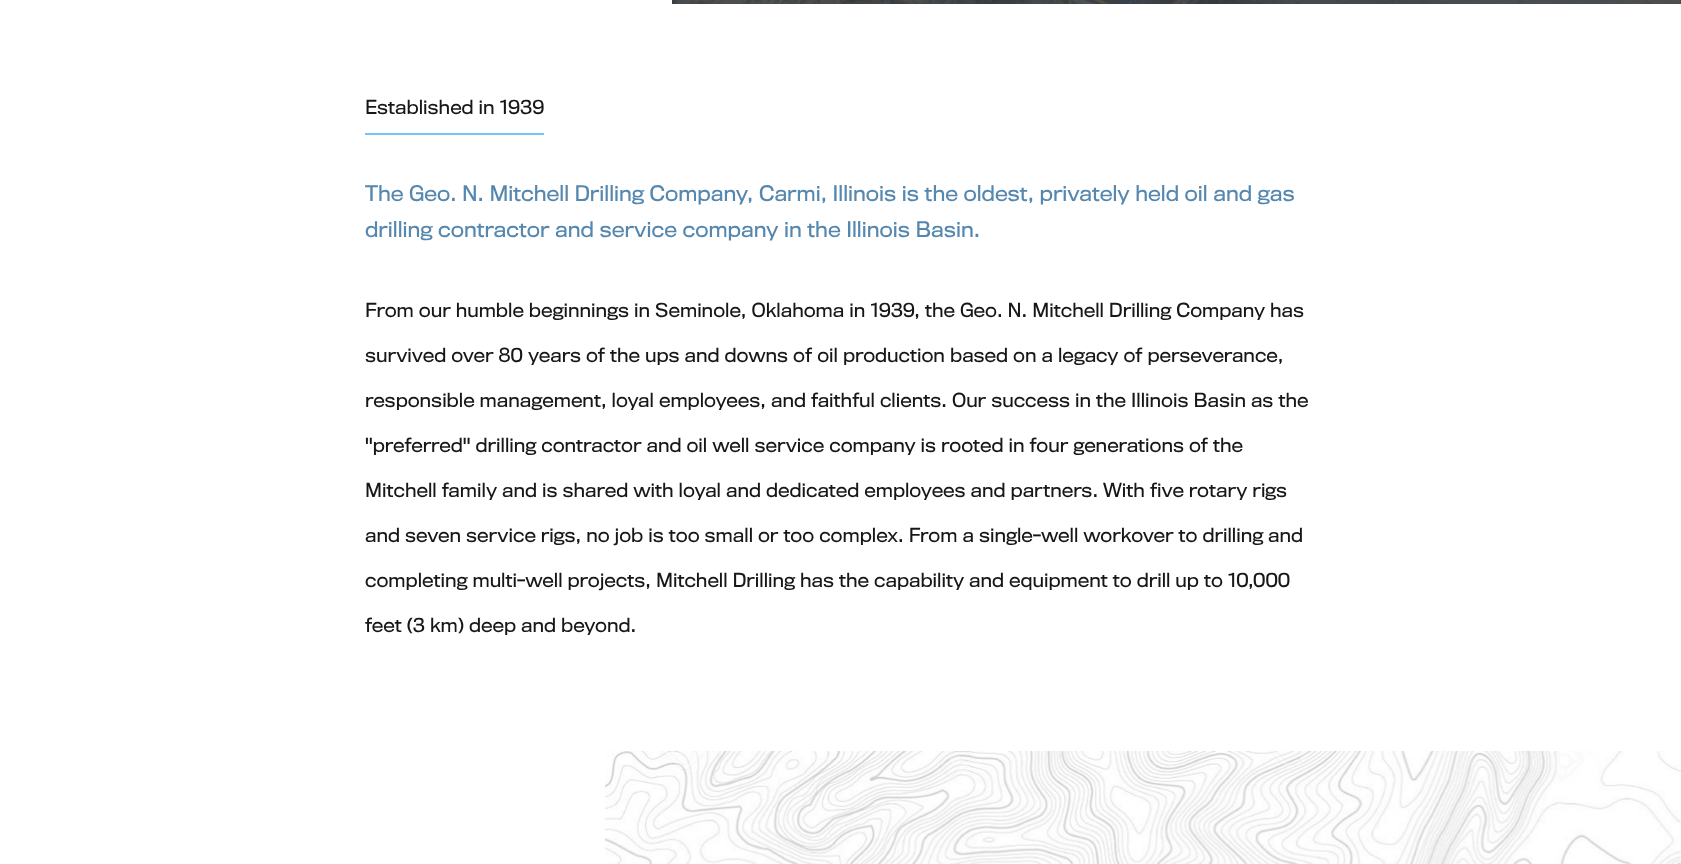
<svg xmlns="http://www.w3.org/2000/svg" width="1681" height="864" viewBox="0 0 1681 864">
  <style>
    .t1 { font: 18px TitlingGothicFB; fill: #171717; }
    .t2 { font: 20px TitlingGothicFB; fill: #5587af; }
  </style>
  <rect width="100%" height="100%" fill="#fff"/>
  <image x="672" y="0" width="1009" height="4" href="images/1.png"/>
  <text x="365" y="114" class="t1">Established in 1939</text>
  <rect x="365" y="133" width="179" height="2" fill="#73c3ff"/>
  <text x="365" y="201" class="t2">The Geo. N. Mitchell Drilling Company, Carmi, Illinois is the oldest, privately held oil and gas</text>
  <text x="365" y="237" class="t2">drilling contractor and service company in the Illinois Basin.</text>
  <text x="365" y="317" class="t1">From our humble beginnings in Seminole, Oklahoma in 1939, the Geo. N. Mitchell Drilling Company has</text>
  <text x="365" y="362" class="t1">survived over 80 years of the ups and downs of oil production based on a legacy of perseverance,</text>
  <text x="365" y="407" class="t1">responsible management, loyal employees, and faithful clients. Our success in the Illinois Basin as the</text>
  <text x="365" y="452" class="t1">"preferred" drilling contractor and oil well service company is rooted in four generations of the</text>
  <text x="365" y="497" class="t1">Mitchell family and is shared with loyal and dedicated employees and partners. With five rotary rigs</text>
  <text x="365" y="542" class="t1">and seven service rigs, no job is too small or too complex. From a single-well workover to drilling and</text>
  <text x="365" y="587" class="t1">completing multi-well projects, Mitchell Drilling has the capability and equipment to drill up to 10,000</text>
  <text x="365" y="632" class="t1">feet (3 km) deep and beyond.</text>
  <image x="605" y="751" width="1076" height="113" href="images/2.png"/>
</svg>
